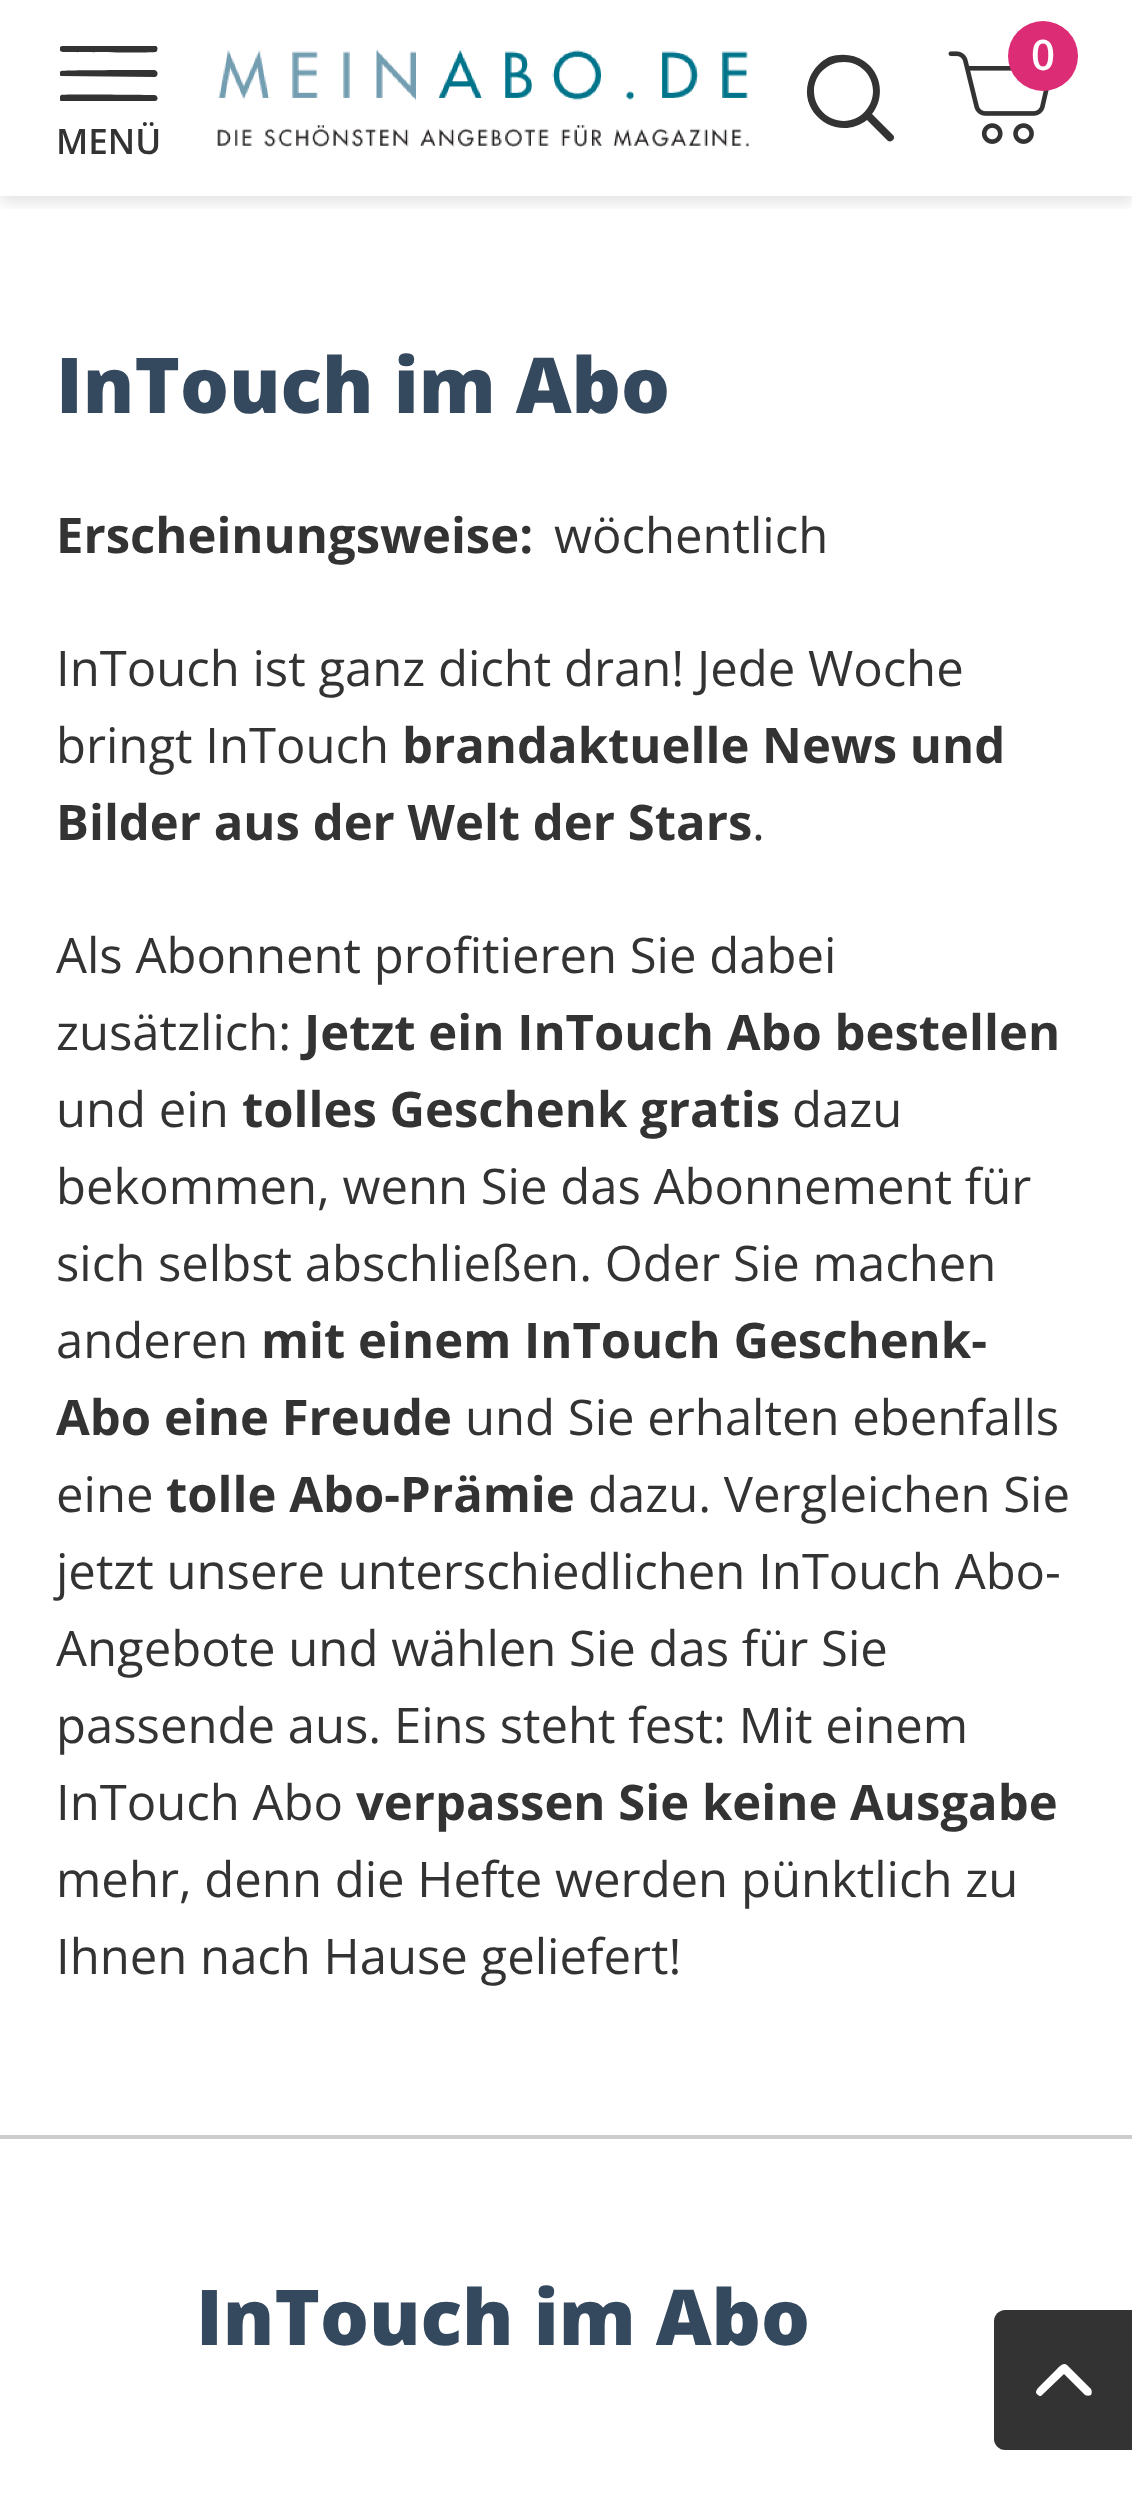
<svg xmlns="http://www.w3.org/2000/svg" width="1132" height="2506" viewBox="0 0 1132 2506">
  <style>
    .t1 { font: 600 35px Open Sans; fill: #333; }
    .t2 { font: 600 42px Open Sans; fill: #fff; }
    .t3 { font: 800 77px Open Sans; fill: #34495e; }
    .t4 { font: bold 49px Open Sans; fill: #333; }
    .t5 { font: 49px Open Sans; fill: #333; }
  </style>
  <defs>
    <clipPath id="clip1"><rect x="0" y="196" width="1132" height="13"/></clipPath>
    <clipPath id="clip2"><rect x="60" y="25" width="98" height="98"/></clipPath>
  </defs>
  <rect width="100%" height="100%" fill="#fff"/>
  <g clip-path="url(#clip1)">
    <rect x="0" y="7" width="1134" height="196" fill="#0000001a" filter="blur(7px)"/>
  </g>
  <g clip-path="url(#clip2)">
    <path d="M63 52C72 52 154 53 156 52C158 50 158 47 156 46H62C58 47 59 52 63 52Z" fill="#333"/>
    <path d="M154 70C145 70 63 70 61 71C59 72 59 75 61 76L155 77C159 76 158 70 154 70Z" fill="#333"/>
    <path d="M154 95C145 95 63 94 61 95C59 97 59 100 61 101H155C159 100 158 95 154 95Z" fill="#333"/>
  </g>
  <text x="56" y="154" class="t1">MENÜ</text>
  <image x="217" y="49" width="532" height="98" href="images/1.png"/>
  <path d="M893 135L872 114C885 98 882 73 864 61C854 54 841 53 829 57C821 61 814 68 810 77C795 113 838 143 867 120L888 141C892 143 896 138 893 135ZM844 121C827 121 814 107 814 91C814 75 827 62 844 62C860 62 873 75 873 91C873 107 860 121 844 121Z" fill="#333"/>
  <image x="948" y="51" width="101" height="93" href="images/2.png"/>
  <circle cx="1043" cy="56" r="35" fill="#db2c75"/>
  <text x="1031" y="70" class="t2">0</text>
  <text x="56" y="413" class="t3">InTouch im Abo</text>
  <text x="56" y="553" class="t4">Erscheinungsweise:</text>
  <text x="554" y="553" class="t5">wöchentlich</text>
  <text x="56" y="686" class="t5">InTouch ist ganz dicht dran! Jede Woche</text>
  <text x="56" y="763" class="t5">bringt InTouch</text>
  <text x="402" y="763" class="t4">brandaktuelle News und</text>
  <text x="56" y="840" class="t4">Bilder aus der Welt der Stars</text>
  <text x="752" y="840" class="t5">.</text>
  <text x="56" y="973" class="t5">Als Abonnent profitieren Sie dabei</text>
  <text x="56" y="1050" class="t5">zusätzlich:</text>
  <text x="304" y="1050" class="t4">Jetzt ein InTouch Abo bestellen</text>
  <text x="56" y="1127" class="t5">und ein</text>
  <text x="242" y="1127" class="t4">tolles Geschenk gratis</text>
  <text x="792" y="1127" class="t5">dazu</text>
  <text x="56" y="1204" class="t5">bekommen, wenn Sie das Abonnement für</text>
  <text x="56" y="1281" class="t5">sich selbst abschließen. Oder Sie machen</text>
  <text x="56" y="1358" class="t5">anderen</text>
  <text x="261" y="1358" class="t4">mit einem InTouch Geschenk-</text>
  <text x="56" y="1435" class="t4">Abo eine Freude</text>
  <text x="465" y="1435" class="t5">und Sie erhalten ebenfalls</text>
  <text x="56" y="1512" class="t5">eine</text>
  <text x="166" y="1512" class="t4">tolle Abo-Prämie</text>
  <text x="588" y="1512" class="t5">dazu. Vergleichen Sie</text>
  <text x="56" y="1589" class="t5">jetzt unsere unterschiedlichen InTouch Abo-</text>
  <text x="56" y="1666" class="t5">Angebote und wählen Sie das für Sie</text>
  <text x="56" y="1743" class="t5">passende aus. Eins steht fest: Mit einem</text>
  <text x="56" y="1820" class="t5">InTouch Abo</text>
  <text x="356" y="1820" class="t4">verpassen Sie keine Ausgabe</text>
  <text x="56" y="1897" class="t5">mehr, denn die Hefte werden pünktlich zu</text>
  <text x="56" y="1974" class="t5">Ihnen nach Hause geliefert!</text>
  <rect x="0" y="2135" width="1132" height="4" fill="#cdcdcd"/>
  <text x="196" y="2345" class="t3">InTouch im Abo</text>
  <path d="M1005 2310H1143V2450H1005C999 2450 994 2445 994 2439V2321C994 2315 999 2310 1005 2310Z" fill="#333"/>
  <path d="M1067 2365L1091 2389C1092 2391 1092 2393 1091 2395C1089 2396 1087 2396 1085 2395L1064 2374L1041 2396C1040 2396 1039 2396 1038 2395C1033 2392 1039 2387 1041 2385L1057 2369C1059 2367 1063 2362 1067 2365Z" fill="#fff"/>
</svg>
